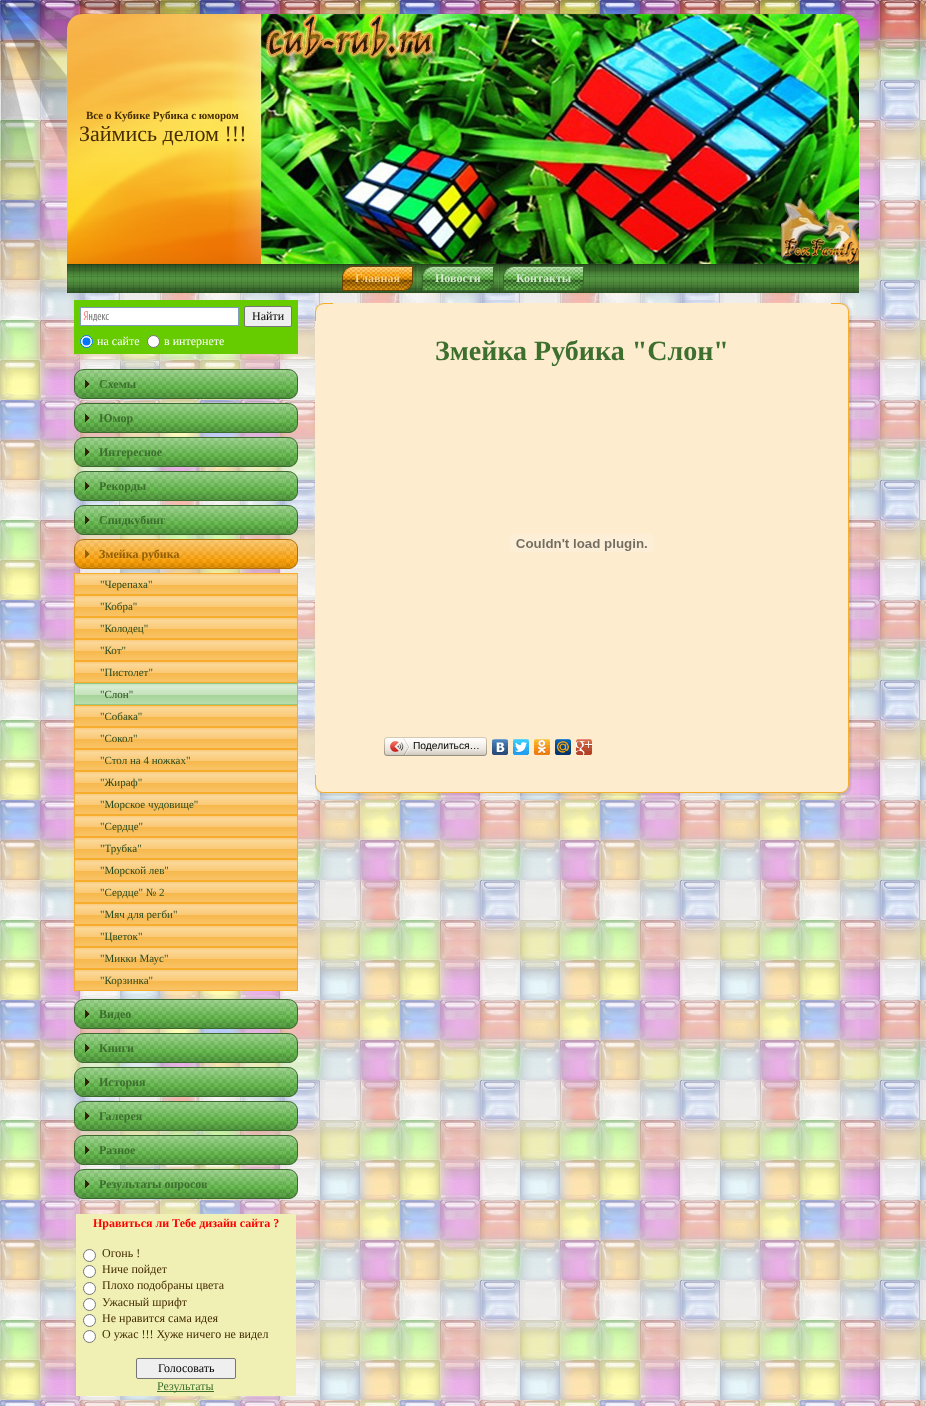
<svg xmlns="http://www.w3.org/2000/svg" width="926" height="1406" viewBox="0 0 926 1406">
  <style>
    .t1 { font: bold 11px Liberation Serif; fill: #452c03; }
    .t2 { font: 22px Liberation Serif; fill: #452c03; }
    .t3 { font: bold 12px Liberation Serif; fill: #facf85; }
    .t4 { font: bold 12px Liberation Serif; fill: #d3eacd; }
    .t5 { font: 12px Liberation Serif; fill: #000; }
    .t6 { font: 12px Liberation Serif; fill: #fff; }
    .t7 { font: bold 12px Liberation Serif; fill: #3d6f2f; }
    .t8 { font: bold 12px Liberation Serif; fill: #935f06; }
    .t9 { font: 11px Liberation Serif; fill: #294b20; }
    .t10 { font: bold 12px Liberation Serif; fill: #f00; }
    .t11 { font: 12px Liberation Serif; fill: #452c03; }
    .t12 { font: 12px Liberation Serif; fill: #3d6f2f; }
    .t13 { font: bold 28px Liberation Serif; fill: #3d6f2f; }
    .t14 { font: 10.25px Liberation Sans; fill: #000; }
  </style>
  <rect width="100%" height="100%" fill="#fff"/>
  <image x="0" y="79" width="926" height="1327" href="images/1.png"/>
  <image x="0" y="0" width="926" height="79" href="images/2.png"/>
  <image x="1" y="1" width="315" height="314" href="images/3.png"/>
  <image x="66" y="13" width="25" height="25" href="images/4.png"/>
  <image x="91" y="13" width="744" height="1" href="images/5.png"/>
  <image x="835" y="13" width="25" height="25" href="images/6.png"/>
  <rect x="66" y="38" width="25" height="1368" fill="#fff5e01a"/>
  <rect x="835" y="38" width="25" height="1368" fill="#fff5e01a"/>
  <image x="67" y="14" width="792" height="250" href="images/7.png"/>
  <image x="84" y="29" width="760" height="220" href="images/8.png"/>
  <text x="86" y="119" class="t1">Все о Кубике Рубика с юмором</text>
  <text x="79" y="141" class="t2">Займись делом !!!</text>
  <image x="67" y="264" width="792" height="29" href="images/9.png"/>
  <image x="342" y="266" width="60" height="25" href="images/10.png"/>
  <image x="402" y="266" width="11" height="25" href="images/11.png"/>
  <text x="355" y="282" class="t3">Главная</text>
  <image x="417" y="267" width="1" height="24" href="images/12.png"/>
  <image x="422" y="266" width="61" height="25" href="images/13.png"/>
  <image x="483" y="266" width="11" height="25" href="images/14.png"/>
  <text x="435" y="282" class="t4">Новости</text>
  <image x="498" y="267" width="1" height="24" href="images/12.png"/>
  <image x="503" y="266" width="70" height="25" href="images/15.png"/>
  <image x="573" y="266" width="11" height="25" href="images/14.png"/>
  <text x="516" y="282" class="t4">Контакты</text>
  <rect x="91" y="293" width="744" height="1113" fill="#fff5e01a"/>
  <rect x="74" y="300" width="224" height="54" fill="#6c0"/>
  <rect x="81" y="308" width="157" height="17" fill="#fff"/>
  <image x="83" y="311" width="26" height="11" href="images/16.png"/>
  <rect x="80.5" y="307.5" width="158" height="18" fill="none" stroke="#7f9db9"/>
  <rect x="244.5" y="306.5" width="47" height="20" rx="1.5" fill="#efefef" stroke="#767676"/>
  <text x="252" y="320" class="t5">Найти</text>
  <circle cx="86.5" cy="341.5" r="6" fill="#fff" stroke="#0075ff"/>
  <circle cx="86.5" cy="341.5" r="4" fill="#0075ff"/>
  <text x="97" y="345" class="t6">на сайте</text>
  <circle cx="153.5" cy="341.5" r="6" fill="#fff" stroke="#767676"/>
  <text x="164" y="345" class="t6">в интернете</text>
  <image x="74" y="369" width="209" height="30" href="images/17.png"/>
  <image x="283" y="369" width="15" height="30" href="images/18.png"/>
  <text x="99" y="388" class="t7">Схемы</text>
  <image x="74" y="403" width="209" height="30" href="images/19.png"/>
  <image x="283" y="403" width="15" height="30" href="images/20.png"/>
  <text x="99" y="422" class="t7">Юмор</text>
  <image x="74" y="437" width="209" height="30" href="images/21.png"/>
  <image x="283" y="437" width="15" height="30" href="images/22.png"/>
  <text x="99" y="456" class="t7">Интересное</text>
  <image x="74" y="471" width="209" height="30" href="images/23.png"/>
  <image x="283" y="471" width="15" height="30" href="images/24.png"/>
  <text x="99" y="490" class="t7">Рекорды</text>
  <image x="74" y="505" width="209" height="30" href="images/25.png"/>
  <image x="283" y="505" width="15" height="30" href="images/26.png"/>
  <text x="99" y="524" class="t7">Спидкубинг</text>
  <image x="74" y="539" width="209" height="30" href="images/27.png"/>
  <image x="283" y="539" width="15" height="30" href="images/28.png"/>
  <text x="99" y="558" class="t8">Змейка рубика</text>
  <image x="75" y="574" width="222" height="20" href="images/29.png"/>
  <rect x="74.5" y="573.5" width="223" height="21" fill="none" stroke="#f6ac2c"/>
  <text x="100" y="588" class="t9">"Черепаха"</text>
  <image x="75" y="596" width="222" height="20" href="images/29.png"/>
  <rect x="74.5" y="595.5" width="223" height="21" fill="none" stroke="#f6ac2c"/>
  <text x="100" y="610" class="t9">"Кобра"</text>
  <image x="75" y="618" width="222" height="20" href="images/29.png"/>
  <rect x="74.5" y="617.5" width="223" height="21" fill="none" stroke="#f6ac2c"/>
  <text x="100" y="632" class="t9">"Колодец"</text>
  <image x="75" y="640" width="222" height="20" href="images/29.png"/>
  <rect x="74.5" y="639.5" width="223" height="21" fill="none" stroke="#f6ac2c"/>
  <text x="100" y="654" class="t9">"Кот"</text>
  <image x="75" y="662" width="222" height="20" href="images/29.png"/>
  <rect x="74.5" y="661.5" width="223" height="21" fill="none" stroke="#f6ac2c"/>
  <text x="100" y="676" class="t9">"Пистолет"</text>
  <image x="75" y="684" width="222" height="20" href="images/30.png"/>
  <rect x="74.5" y="683.5" width="223" height="21" fill="none" stroke="#92c982"/>
  <text x="100" y="698" class="t9">"Слон"</text>
  <image x="75" y="706" width="222" height="20" href="images/29.png"/>
  <rect x="74.5" y="705.5" width="223" height="21" fill="none" stroke="#f6ac2c"/>
  <text x="100" y="720" class="t9">"Собака"</text>
  <image x="75" y="728" width="222" height="20" href="images/29.png"/>
  <rect x="74.5" y="727.5" width="223" height="21" fill="none" stroke="#f6ac2c"/>
  <text x="100" y="742" class="t9">"Сокол"</text>
  <image x="75" y="750" width="222" height="20" href="images/29.png"/>
  <rect x="74.5" y="749.5" width="223" height="21" fill="none" stroke="#f6ac2c"/>
  <text x="100" y="764" class="t9">"Стол на 4 ножках"</text>
  <image x="75" y="772" width="222" height="20" href="images/29.png"/>
  <rect x="74.5" y="771.5" width="223" height="21" fill="none" stroke="#f6ac2c"/>
  <text x="100" y="786" class="t9">"Жираф"</text>
  <image x="75" y="794" width="222" height="20" href="images/29.png"/>
  <rect x="74.5" y="793.5" width="223" height="21" fill="none" stroke="#f6ac2c"/>
  <text x="100" y="808" class="t9">"Морское чудовище"</text>
  <image x="75" y="816" width="222" height="20" href="images/29.png"/>
  <rect x="74.5" y="815.5" width="223" height="21" fill="none" stroke="#f6ac2c"/>
  <text x="100" y="830" class="t9">"Сердце"</text>
  <image x="75" y="838" width="222" height="20" href="images/29.png"/>
  <rect x="74.5" y="837.5" width="223" height="21" fill="none" stroke="#f6ac2c"/>
  <text x="100" y="852" class="t9">"Трубка"</text>
  <image x="75" y="860" width="222" height="20" href="images/29.png"/>
  <rect x="74.5" y="859.5" width="223" height="21" fill="none" stroke="#f6ac2c"/>
  <text x="100" y="874" class="t9">"Морской лев"</text>
  <image x="75" y="882" width="222" height="20" href="images/29.png"/>
  <rect x="74.5" y="881.5" width="223" height="21" fill="none" stroke="#f6ac2c"/>
  <text x="100" y="896" class="t9">"Сердце" № 2</text>
  <image x="75" y="904" width="222" height="20" href="images/29.png"/>
  <rect x="74.5" y="903.5" width="223" height="21" fill="none" stroke="#f6ac2c"/>
  <text x="100" y="918" class="t9">"Мяч для регби"</text>
  <image x="75" y="926" width="222" height="20" href="images/29.png"/>
  <rect x="74.5" y="925.5" width="223" height="21" fill="none" stroke="#f6ac2c"/>
  <text x="100" y="940" class="t9">"Цветок"</text>
  <image x="75" y="948" width="222" height="20" href="images/29.png"/>
  <rect x="74.5" y="947.5" width="223" height="21" fill="none" stroke="#f6ac2c"/>
  <text x="100" y="962" class="t9">"Микки Маус"</text>
  <image x="75" y="970" width="222" height="20" href="images/29.png"/>
  <rect x="74.5" y="969.5" width="223" height="21" fill="none" stroke="#f6ac2c"/>
  <text x="100" y="984" class="t9">"Корзинка"</text>
  <image x="74" y="999" width="209" height="30" href="images/31.png"/>
  <image x="283" y="999" width="15" height="30" href="images/32.png"/>
  <text x="99" y="1018" class="t7">Видео</text>
  <image x="74" y="1033" width="209" height="30" href="images/33.png"/>
  <image x="283" y="1033" width="15" height="30" href="images/34.png"/>
  <text x="99" y="1052" class="t7">Книги</text>
  <image x="74" y="1067" width="209" height="30" href="images/35.png"/>
  <image x="283" y="1067" width="15" height="30" href="images/36.png"/>
  <text x="99" y="1086" class="t7">История</text>
  <image x="74" y="1101" width="209" height="30" href="images/37.png"/>
  <image x="283" y="1101" width="15" height="30" href="images/38.png"/>
  <text x="99" y="1120" class="t7">Галерея</text>
  <image x="74" y="1135" width="209" height="30" href="images/39.png"/>
  <image x="283" y="1135" width="15" height="30" href="images/40.png"/>
  <text x="99" y="1154" class="t7">Разное</text>
  <image x="74" y="1169" width="209" height="30" href="images/17.png"/>
  <image x="283" y="1169" width="15" height="30" href="images/18.png"/>
  <text x="99" y="1188" class="t7">Результаты опросов</text>
  <rect x="76" y="1214" width="220" height="182" fill="#f0f0b4"/>
  <text x="93" y="1227" class="t10">Нравиться ли Тебе дизайн сайта ?</text>
  <circle cx="89.5" cy="1255.5" r="6" fill="#fff" stroke="#767676"/>
  <text x="102" y="1257" class="t11">Огонь !</text>
  <circle cx="89.5" cy="1271.5" r="6" fill="#fff" stroke="#767676"/>
  <text x="102" y="1273" class="t11">Ниче пойдет</text>
  <circle cx="89.5" cy="1288.5" r="6" fill="#fff" stroke="#767676"/>
  <text x="102" y="1289" class="t11">Плохо подобраны цвета</text>
  <circle cx="89.5" cy="1304.5" r="6" fill="#fff" stroke="#767676"/>
  <text x="102" y="1306" class="t11">Ужасный шрифт</text>
  <circle cx="89.5" cy="1320.5" r="6" fill="#fff" stroke="#767676"/>
  <text x="102" y="1322" class="t11">Не нравится сама идея</text>
  <circle cx="89.5" cy="1336.5" r="6" fill="#fff" stroke="#767676"/>
  <text x="102" y="1338" class="t11">О ужас !!! Хуже ничего не видел</text>
  <rect x="136.5" y="1358.5" width="99" height="20" rx="1.5" fill="#efefef" stroke="#767676"/>
  <text x="158" y="1372" class="t5">Голосовать</text>
  <rect x="157" y="1391" width="57" height="1" fill="#3d6f2f"/>
  <text x="157" y="1390" class="t12">Результаты</text>
  <image x="315" y="303" width="18" height="18" href="images/41.png"/>
  <rect x="333" y="303" width="498" height="18" fill="#fdecce"/>
  <image x="831" y="303" width="21" height="18" href="images/42.png"/>
  <rect x="315" y="321" width="516" height="454" fill="#fdecce"/>
  <image x="831" y="321" width="21" height="454" href="images/43.png"/>
  <text x="435" y="360" class="t13">Змейка Рубика "Слон"</text>
  <image x="510" y="534" width="144" height="18" href="images/44.png"/>
  <image x="387" y="737" width="97" height="19" href="images/45.png"/>
  <image x="384" y="737" width="3" height="19" href="images/46.png"/>
  <image x="390" y="738" width="20" height="17" href="images/47.png"/>
  <text x="413" y="749" class="t14">Поделиться…</text>
  <image x="484" y="737" width="3" height="19" href="images/48.png"/>
  <image x="492" y="739" width="16" height="16" href="images/49.png"/>
  <image x="513" y="739" width="16" height="16" href="images/50.png"/>
  <image x="534" y="739" width="16" height="16" href="images/51.png"/>
  <image x="555" y="739" width="16" height="16" href="images/52.png"/>
  <image x="576" y="739" width="16" height="16" href="images/53.png"/>
  <image x="315" y="775" width="18" height="21" href="images/54.png"/>
  <image x="333" y="775" width="498" height="21" href="images/55.png"/>
  <image x="831" y="775" width="21" height="21" href="images/56.png"/>
</svg>
